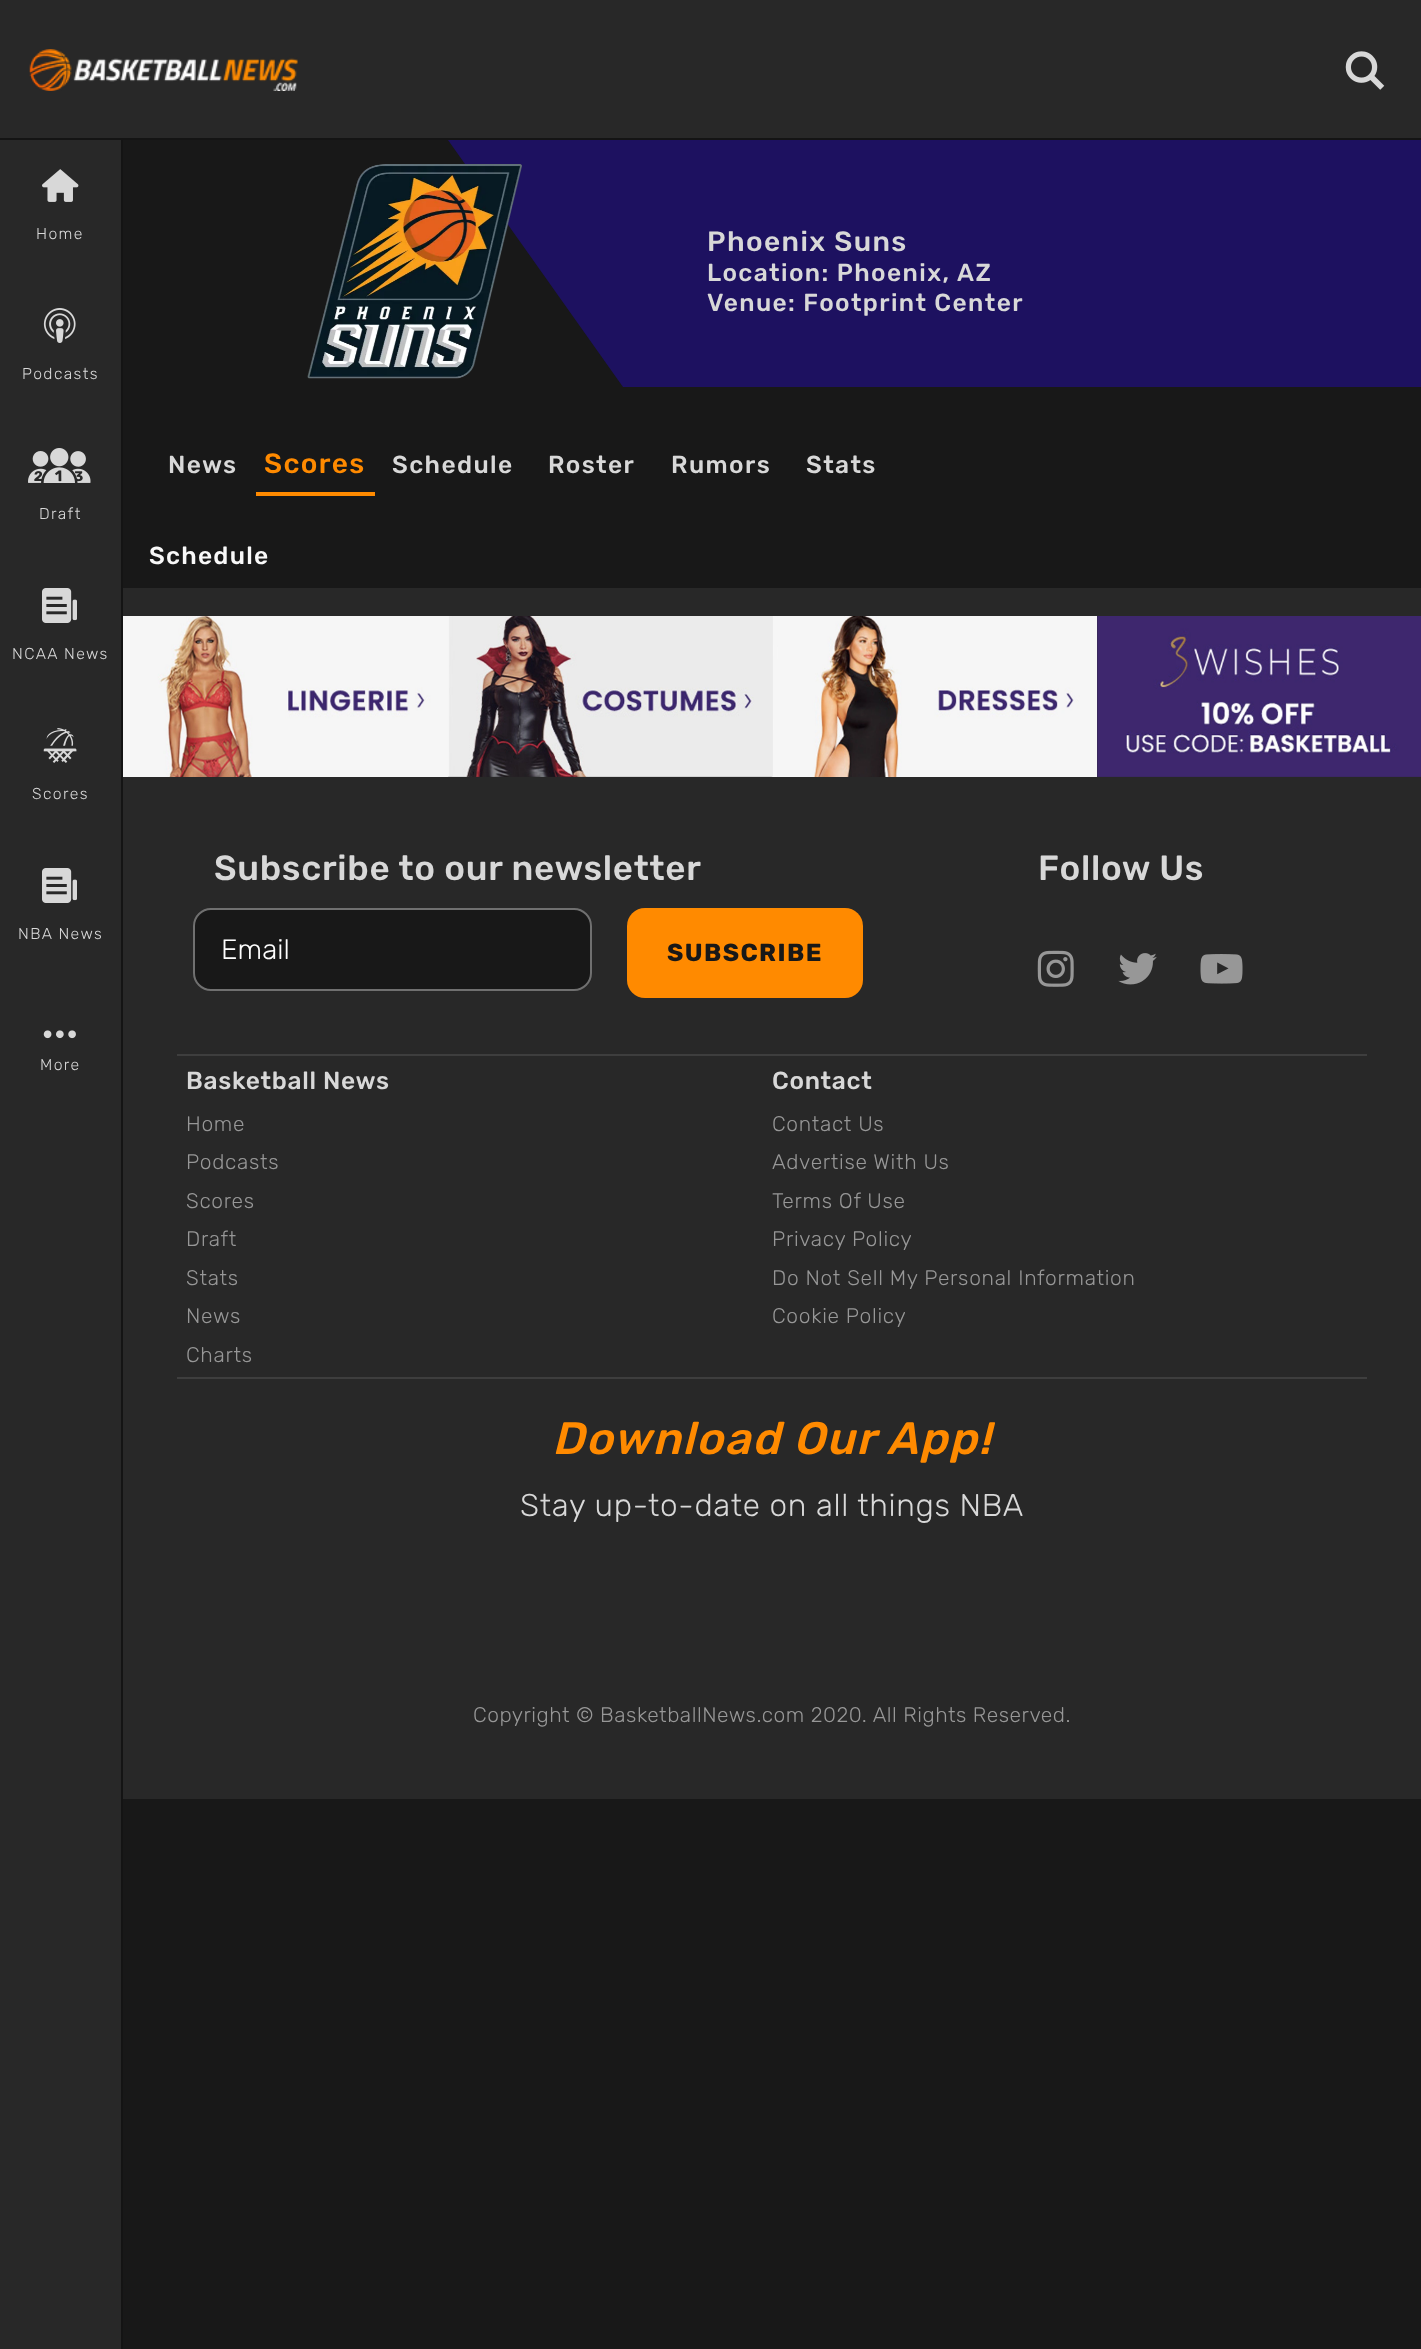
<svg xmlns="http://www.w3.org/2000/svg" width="1421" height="2349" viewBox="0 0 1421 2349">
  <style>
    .t1 { font: 300 15.75px Rubik; letter-spacing: 1.4px; fill: #d8d8d8; }
    .t2 { font: 500 28px Rubik; letter-spacing: 1.4px; fill: #d8d8d8; }
    .t3 { font: 500 24.5px Rubik; letter-spacing: 1.4px; fill: #d8d8d8; }
    .t4 { font: 500 28px Rubik; letter-spacing: 1.4px; fill: #ff8a00; }
    .t5 { font: 500 24.5px Rubik; letter-spacing: 1.25px; fill: #f8f8f8; }
    .t6 { font: 500 35px Rubik; letter-spacing: 0.7px; fill: #d8d8d8; }
    .t7 { font: 300 28px Rubik; fill: #fff; }
    .t8 { font: bold 24.5px Rubik; letter-spacing: 1.4px; fill: #181818; }
    .t9 { font: 500 24.5px Rubik; letter-spacing: 0.7px; fill: #d8d8d8; }
    .t10 { font: 300 21px Rubik; letter-spacing: 0.7px; fill: #979797; }
    .t11 { font: italic 500 45.5px Rubik; letter-spacing: 1.5px; fill: #ff8a00; }
    .t12 { font: 300 31.5px Rubik; letter-spacing: 0.7px; fill: #d8d8d8; }
    .t13 { font: 300 21px Rubik; letter-spacing: 0.53px; fill: #979797; }
  </style>
  <rect width="100%" height="100%" fill="#181818"/>
  <rect x="0" y="0" width="1421" height="138" fill="#282828"/>
  <rect x="0" y="138" width="1421" height="2" fill="#141414"/>
  <image x="29" y="49" width="269" height="42" href="images/1.png"/>
  <image x="1345" y="51" width="40" height="39" href="images/2.png"/>
  <rect x="0" y="140" width="121" height="2209" fill="#282828"/>
  <rect x="121" y="140" width="2" height="2209" fill="#141414"/>
  <image x="42" y="169" width="37" height="33" href="images/3.png"/>
  <text x="36" y="239" class="t1">Home</text>
  <image x="43" y="308" width="33" height="35" href="images/4.png"/>
  <text x="22" y="379" class="t1">Podcasts</text>
  <image x="28" y="448" width="63" height="35" href="images/5.png"/>
  <text x="39" y="519" class="t1">Draft</text>
  <image x="42" y="588" width="35" height="35" href="images/6.png"/>
  <text x="12" y="659" class="t1">NCAA News</text>
  <image x="43" y="728" width="34" height="35" href="images/7.png"/>
  <text x="32" y="799" class="t1">Scores</text>
  <image x="42" y="868" width="35" height="35" href="images/6.png"/>
  <text x="18" y="939" class="t1">NBA News</text>
  <image x="43" y="1030" width="33" height="9" href="images/8.png"/>
  <text x="40" y="1070" class="t1">More</text>
  <path d="M448 140H1421V387H623Z" fill="#1d1160"/>
  <image x="307" y="164" width="215" height="215" href="images/9.png"/>
  <text x="707" y="251" class="t2">Phoenix Suns</text>
  <text x="707" y="281" class="t3">Location: Phoenix,</text>
  <text x="957" y="281" class="t3">AZ</text>
  <text x="707" y="311" class="t3">Venue: Footprint Center</text>
  <text x="168" y="473" class="t3">News</text>
  <rect x="256" y="492" width="119" height="4" fill="#ff8a00"/>
  <text x="264" y="473" class="t4">Scores</text>
  <text x="392" y="473" class="t3">Schedule</text>
  <text x="548" y="473" class="t3">Roster</text>
  <text x="671" y="473" class="t3">Rumors</text>
  <text x="806" y="473" class="t3">Stats</text>
  <text x="149" y="564" class="t5">Schedule</text>
  <rect x="123" y="588" width="1298" height="1211" fill="#282828"/>
  <image x="123" y="616" width="325" height="161" href="images/10.png"/>
  <image x="448" y="616" width="324" height="161" href="images/11.png"/>
  <image x="771" y="616" width="326" height="161" href="images/12.png"/>
  <image x="1097" y="616" width="324" height="161" href="images/13.png"/>
  <text x="214" y="880" class="t6">Subscribe to our newsletter</text>
  <rect x="194" y="909" width="397" height="81" rx="17" fill="#181818" stroke="#707070" stroke-width="2"/>
  <text x="221" y="959" class="t7">Email</text>
  <rect x="627" y="908" width="236" height="90" rx="18" fill="#ff8a00"/>
  <text x="667" y="961" class="t8">SUBSCRIBE</text>
  <text x="1038" y="880" class="t6">Follow Us</text>
  <image x="1037" y="950" width="37" height="37" href="images/14.png"/>
  <image x="1118" y="953" width="39" height="32" href="images/15.png"/>
  <image x="1200" y="954" width="43" height="30" href="images/16.png"/>
  <rect x="177" y="1054" width="1190" height="2" fill="#3e3e3e"/>
  <text x="186" y="1089" class="t9">Basketball News</text>
  <text x="186" y="1131" class="t10">Home</text>
  <text x="186" y="1169" class="t10">Podcasts</text>
  <text x="186" y="1208" class="t10">Scores</text>
  <text x="186" y="1246" class="t10">Draft</text>
  <text x="186" y="1285" class="t10">Stats</text>
  <text x="186" y="1323" class="t10">News</text>
  <text x="186" y="1362" class="t10">Charts</text>
  <text x="772" y="1089" class="t9">Contact</text>
  <text x="772" y="1131" class="t10">Contact Us</text>
  <text x="772" y="1169" class="t10">Advertise With Us</text>
  <text x="772" y="1208" class="t10">Terms Of Use</text>
  <text x="772" y="1246" class="t10">Privacy Policy</text>
  <text x="772" y="1285" class="t10">Do Not Sell My Personal Information</text>
  <text x="772" y="1323" class="t10">Cookie Policy</text>
  <rect x="177" y="1377" width="1190" height="2" fill="#3e3e3e"/>
  <text x="552" y="1454" class="t11">Download Our App!</text>
  <text x="520" y="1516" class="t12">Stay up-to-date on all things NBA</text>
  <text x="473" y="1722" class="t13">Copyright © BasketballNews.com 2020. All Rights Reserved.</text>
</svg>
